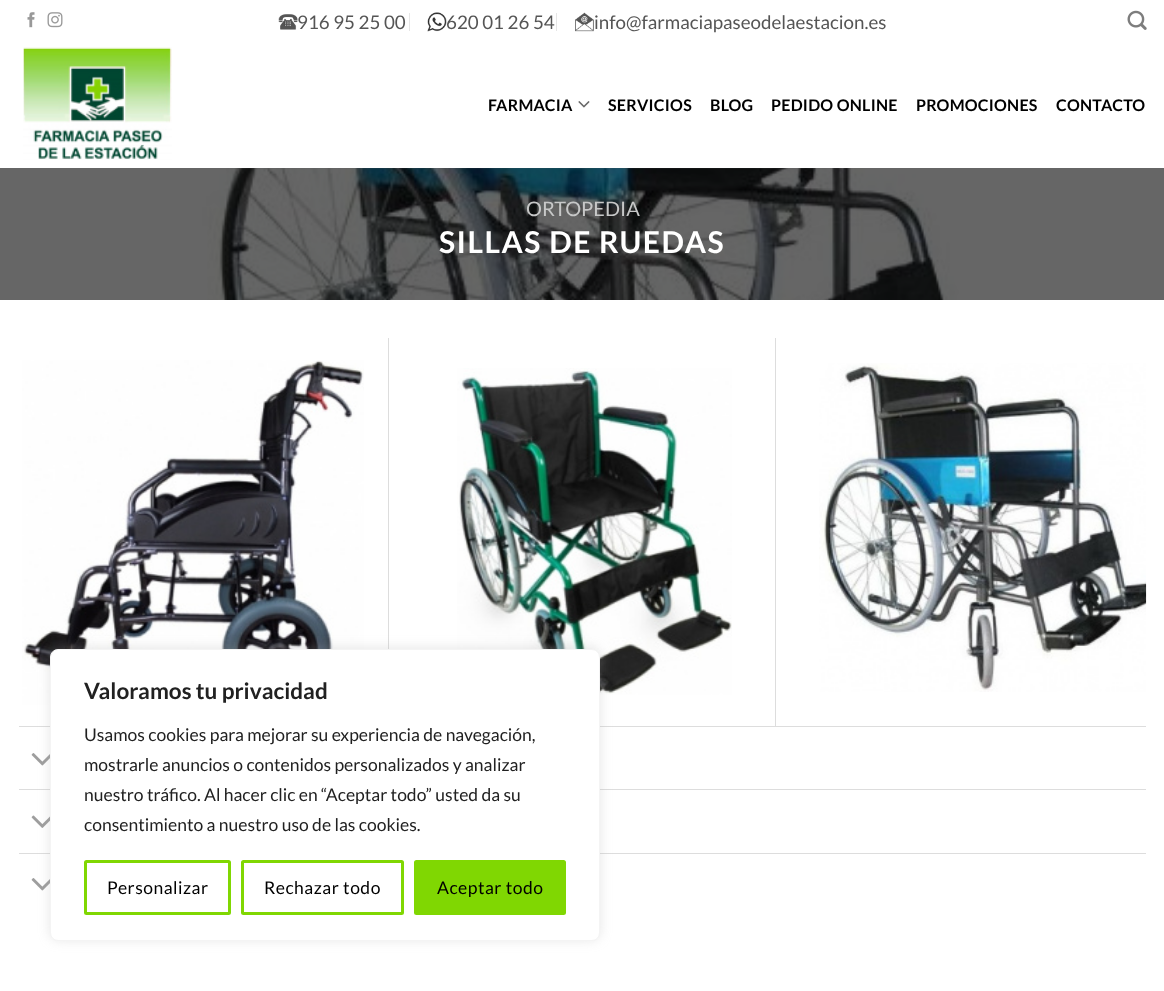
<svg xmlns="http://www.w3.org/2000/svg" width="1164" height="991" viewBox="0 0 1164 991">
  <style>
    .t1 { font: 18.75px Lato; fill: #555; }
    .t2 { font: bold 16px Lato; letter-spacing: 0.25px; fill: #000; }
    .t3 { font: 20px Lato; fill: #c7c8c8; }
    .t4 { font: bold 30px Lato; letter-spacing: 1.5px; fill: #fff; }
    .t5 { font: bold 22.5px Lato; fill: #212121; }
    .t6 { font: 17.5px Lato; fill: #212121; }
    .t7 { font: 17.5px Lato; letter-spacing: 0.5px; fill: #000; }
  </style>
  <rect width="100%" height="100%" fill="#fff"/>
  <image x="27" y="12" width="8" height="16" href="images/1.png"/>
  <image x="47" y="12" width="16" height="16" href="images/2.png"/>
  <image x="278" y="14" width="20" height="16" href="images/3.png"/>
  <text x="297" y="29" class="t1">916 95 25 00</text>
  <rect x="409" y="13" width="1" height="18" fill="#e6e6e6"/>
  <image x="427" y="12" width="20" height="20" href="images/4.png"/>
  <text x="446" y="29" class="t1">620 01 26 54</text>
  <rect x="556" y="13" width="1" height="18" fill="#e6e6e6"/>
  <image x="575" y="12" width="19" height="20" href="images/5.png"/>
  <text x="594" y="29" class="t1">info@farmaciapaseodelaestacion.es</text>
  <image x="1127" y="10" width="20" height="20" href="images/6.png"/>
  <image x="23" y="47" width="149" height="113" href="images/7.png"/>
  <text x="488" y="111" class="t2">FARMACIA</text>
  <image x="578" y="101" width="12" height="7" href="images/8.png"/>
  <text x="608" y="111" class="t2">SERVICIOS</text>
  <text x="710" y="111" class="t2">BLOG</text>
  <text x="771" y="111" class="t2">PEDIDO ONLINE</text>
  <text x="916" y="111" class="t2">PROMOCIONES</text>
  <text x="1056" y="111" class="t2">CONTACTO</text>
  <image x="0" y="168" width="1164" height="132" href="images/9.png"/>
  <rect x="239" y="168" width="610" height="1" fill="#5e5e5e1a"/>
  <text x="526" y="216" class="t3">ORTOPEDIA</text>
  <text x="439" y="253" class="t4">SILLAS DE RUEDAS</text>
  <image x="22" y="360" width="342" height="345" href="images/10.png"/>
  <rect x="388" y="338" width="1" height="311" fill="#ddd"/>
  <image x="457" y="368" width="275" height="327" href="images/11.png"/>
  <rect x="775" y="338" width="1" height="388" fill="#ddd"/>
  <image x="819" y="363" width="328" height="329" href="images/12.png"/>
  <rect x="19" y="726" width="1127" height="1" fill="#ddd"/>
  <image x="31" y="753" width="19" height="13" href="images/13.png"/>
  <rect x="19" y="789" width="1127" height="1" fill="#ddd"/>
  <image x="31" y="815" width="19" height="13" href="images/14.png"/>
  <rect x="19" y="853" width="1127" height="1" fill="#ddd"/>
  <image x="31" y="878" width="19" height="13" href="images/13.png"/>
  <rect x="50" y="648" width="550" height="292" rx="8" fill="#acabab4d" filter="blur(6px)"/>
  <rect x="50.5" y="649.5" width="549" height="291" rx="7.5" fill="#fff" stroke="#f4f4f4"/>
  <text x="84" y="699" class="t5">Valoramos tu privacidad</text>
  <text x="84" y="741" class="t6">Usamos cookies para mejorar su experiencia de navegación,</text>
  <text x="84" y="771" class="t6">mostrarle anuncios o contenidos personalizados y analizar</text>
  <text x="84" y="801" class="t6">nuestro tráfico. Al hacer clic en “Aceptar todo” usted da su</text>
  <text x="84" y="831" class="t6">consentimiento a nuestro uso de las cookies.</text>
  <rect x="85.5" y="861.5" width="144" height="52" rx="1" fill="none" stroke="#80d702" stroke-width="3"/>
  <text x="107" y="894" class="t7">Personalizar</text>
  <rect x="242.5" y="861.5" width="160" height="52" rx="1" fill="none" stroke="#80d702" stroke-width="3"/>
  <text x="264" y="894" class="t7">Rechazar todo</text>
  <rect x="415.5" y="861.5" width="149" height="52" rx="1" fill="#80d702" stroke="#80d702" stroke-width="3"/>
  <text x="437" y="894" class="t7">Aceptar todo</text>
</svg>
